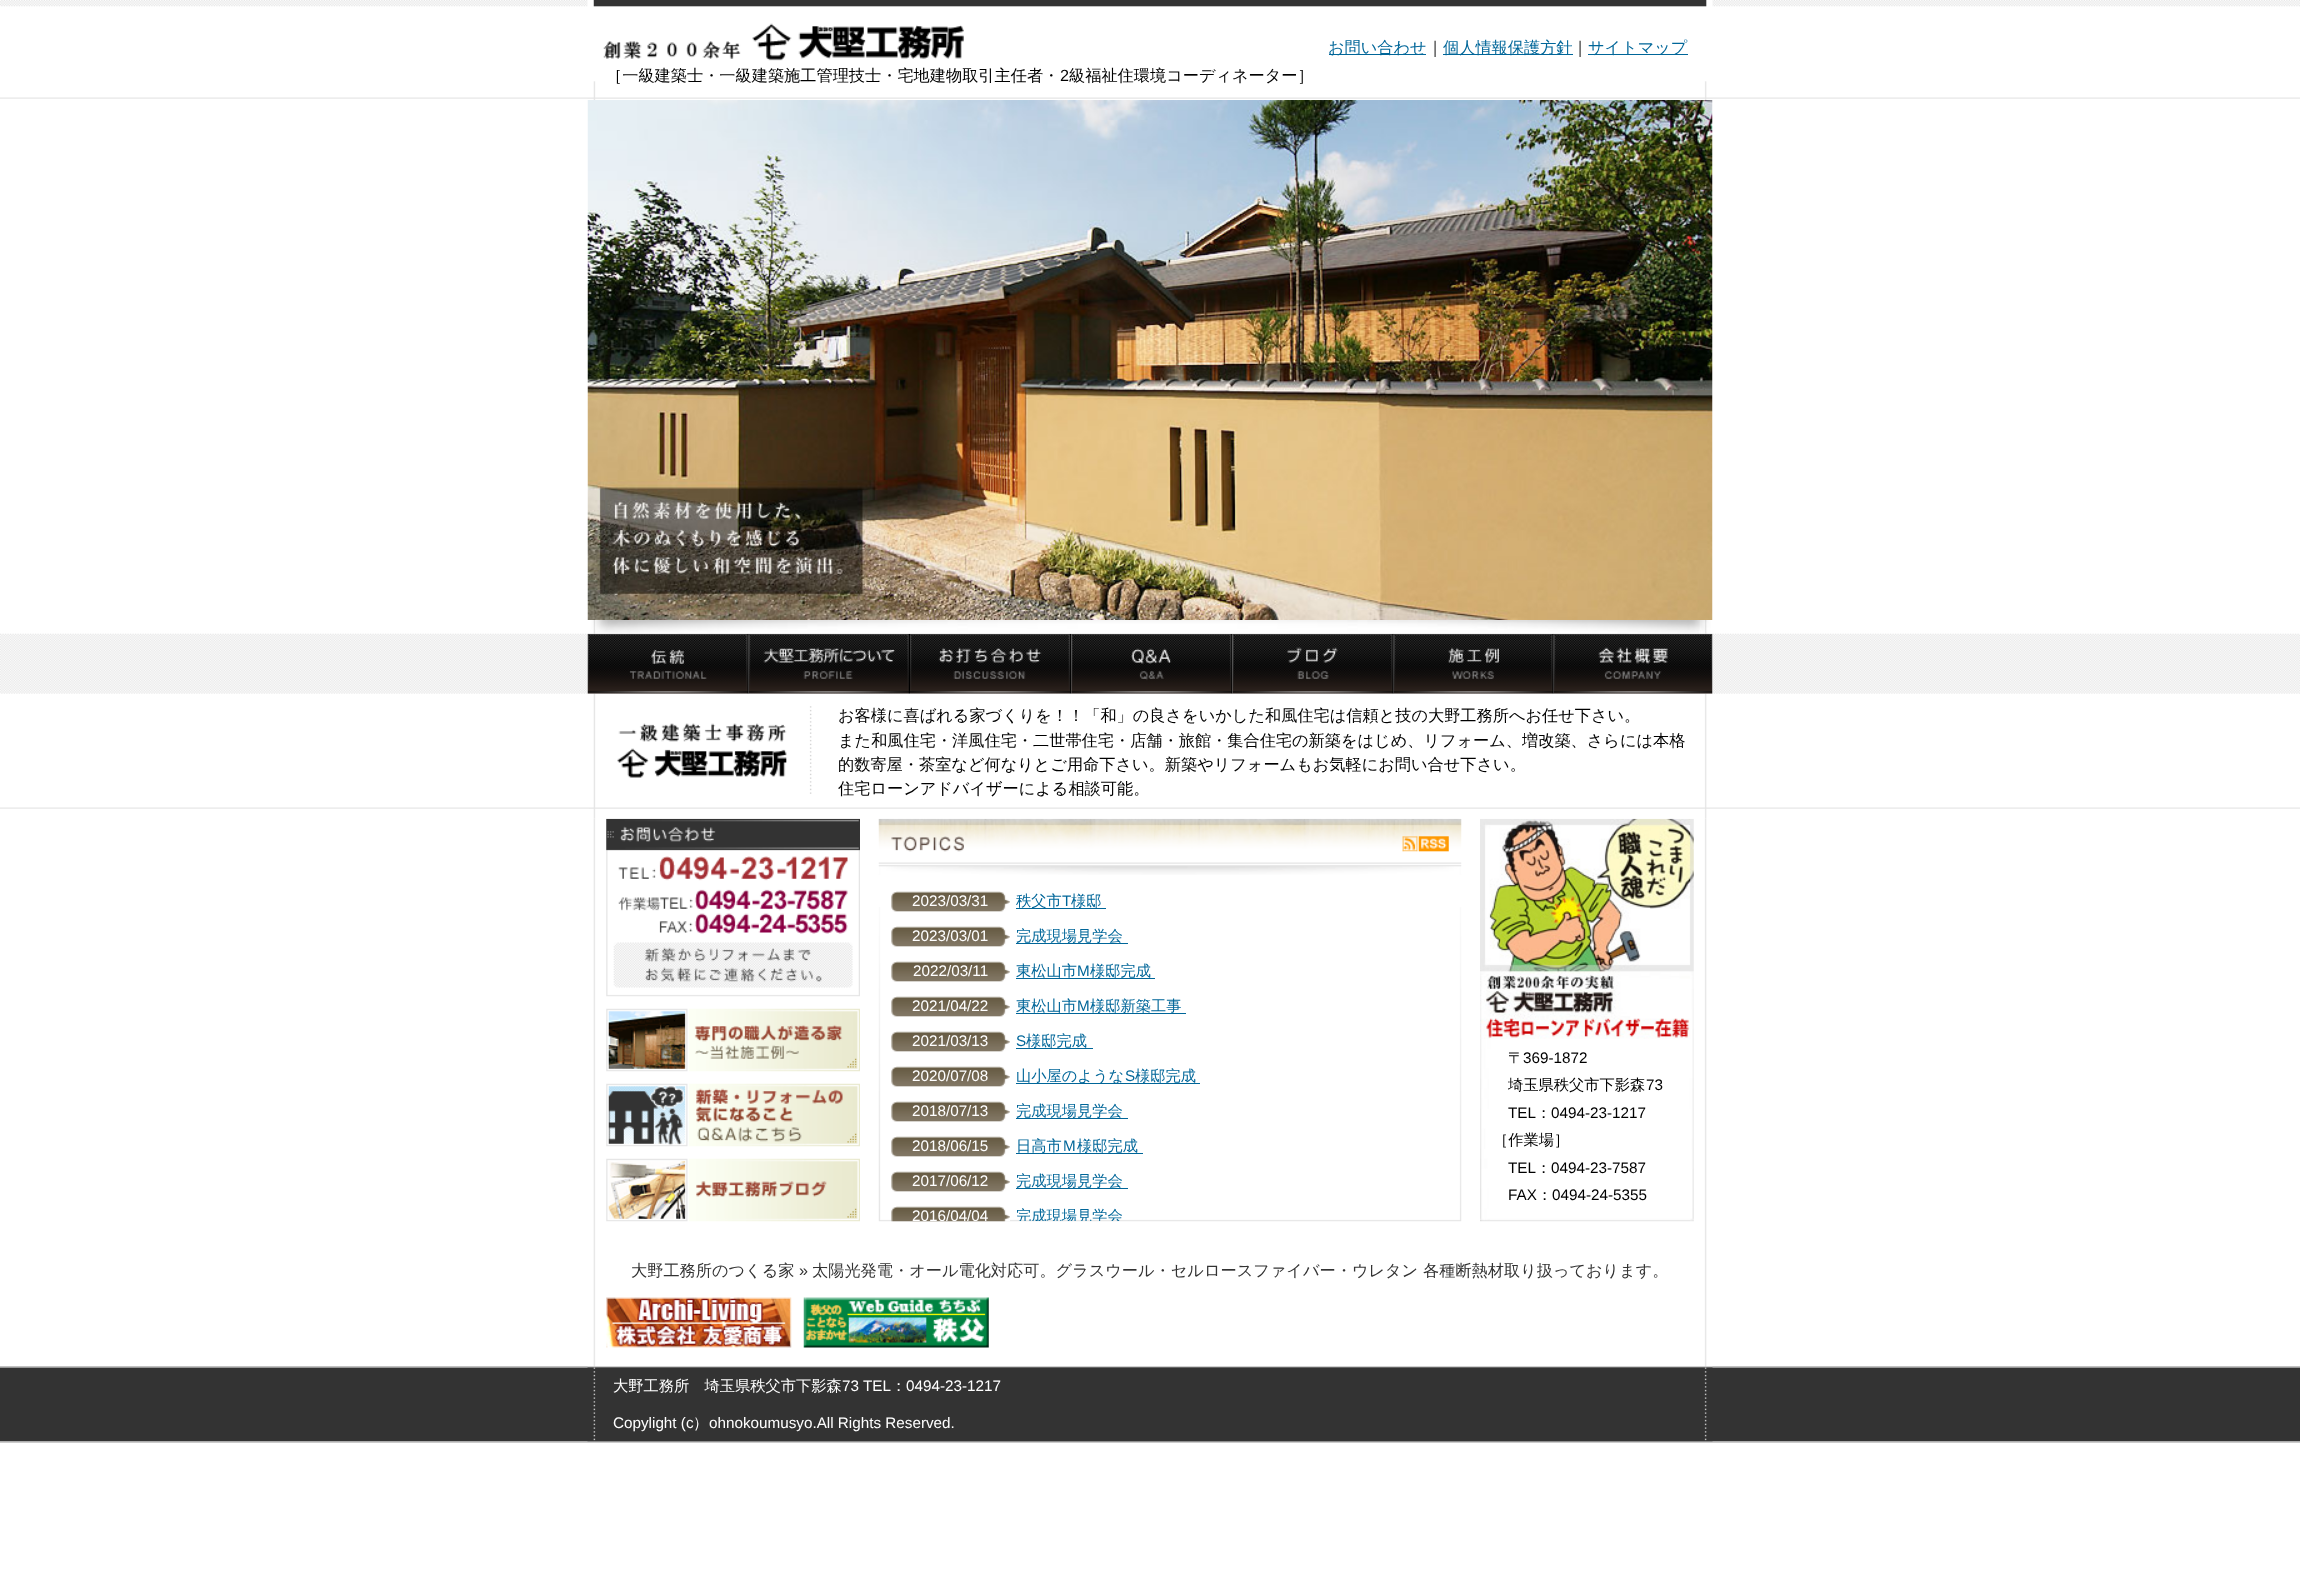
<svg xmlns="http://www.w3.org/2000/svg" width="2300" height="1575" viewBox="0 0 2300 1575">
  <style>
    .t1 { font: 500 16.2px WenQuanYi Zen Hei; fill: #069; }
    .t2 { font: 500 16.2px WenQuanYi Zen Hei; fill: #000; }
    .t3 { font: 16.2px Liberation Sans; fill: #000; }
    .t4 { font: 15.25px Liberation Sans; fill: #fff; }
    .t5 { font: 500 15.25px WenQuanYi Zen Hei; fill: #069; }
    .t6 { font: 15.25px Liberation Sans; fill: #069; }
    .t7 { font: 500 15.25px WenQuanYi Zen Hei; fill: #000; }
    .t8 { font: 15.25px Liberation Sans; fill: #000; }
    .t9 { font: 500 16.2px WenQuanYi Zen Hei; fill: #333; }
    .t10 { font: 16.2px Liberation Sans; fill: #333; }
    .t11 { font: 500 15.25px WenQuanYi Zen Hei; fill: #fff; }
  </style>
  <defs>
    <clipPath id="clip1"><rect x="879" y="878" width="582" height="343"/></clipPath>
  </defs>
  <rect width="100%" height="100%" fill="#fff"/>
  <image x="0" y="0" width="2300" height="809" href="images/1.png"/>
  <image x="587" y="0" width="1126" height="100" href="images/2.png"/>
  <rect x="1329" y="54" width="97" height="1" fill="#069"/>
  <text x="1328" y="53" class="t1">お問い合わせ</text>
  <text x="1427" y="53" class="t2">｜</text>
  <rect x="1443" y="54" width="130" height="1" fill="#069"/>
  <text x="1443" y="53" class="t1">個人情報保護方針</text>
  <text x="1572" y="53" class="t2">｜</text>
  <rect x="1588" y="54" width="100" height="1" fill="#069"/>
  <text x="1588" y="53" class="t1">サイトマップ</text>
  <text x="606" y="81" class="t2">［一級建築士・一級建築施工管理技士・宅地建物取引主任者・</text>
  <text x="1060" y="81" class="t3">2</text>
  <text x="1069" y="81" class="t2">級福祉住環境コーディネーター］</text>
  <image x="587" y="100" width="1126" height="520" href="images/3.png"/>
  <image x="590" y="620" width="1121" height="14" href="images/4.png"/>
  <image x="589" y="693" width="1121" height="126" href="images/12.png"/>
  <image x="587" y="633" width="162" height="61" href="images/5.png"/>
  <image x="748" y="633" width="162" height="61" href="images/6.png"/>
  <image x="910" y="633" width="162" height="61" href="images/7.png"/>
  <image x="1071" y="633" width="162" height="61" href="images/8.png"/>
  <image x="1232" y="633" width="162" height="61" href="images/9.png"/>
  <image x="1393" y="633" width="161" height="61" href="images/10.png"/>
  <image x="1553" y="633" width="160" height="61" href="images/11.png"/>
  <text x="838" y="721" class="t2">お客様に喜ばれる家づくりを！！「和」の良さをいかした和風住宅は信頼と技の大野工務所へお任せ下さい。</text>
  <text x="838" y="746" class="t2">また和風住宅・洋風住宅・二世帯住宅・店舗・旅館・集合住宅の新築をはじめ、リフォーム、増改築、さらには本格</text>
  <text x="838" y="770" class="t2">的数寄屋・茶室など何なりとご用命下さい。新築やリフォームもお気軽にお問い合せ下さい。</text>
  <text x="838" y="794" class="t2">住宅ローンアドバイザーによる相談可能。</text>
  <image x="0" y="1366" width="2300" height="77" href="images/26.png"/>
  <image x="587" y="819" width="1126" height="548" href="images/13.png"/>
  <image x="606" y="818" width="254" height="179" href="images/14.png"/>
  <image x="606" y="1008" width="254" height="64" href="images/15.png"/>
  <image x="606" y="1083" width="254" height="64" href="images/16.png"/>
  <image x="606" y="1158" width="254" height="64" href="images/17.png"/>
  <image x="878" y="818" width="584" height="57" href="images/18.png"/>
  <image x="878" y="907" width="584" height="315" href="images/19.png"/>
  <image x="891" y="891" width="119" height="21" href="images/20.png"/>
  <text x="912" y="906" class="t4">2023/03/31</text>
  <rect x="1016" y="908" width="90" height="1" fill="#069"/>
  <text x="1016" y="906" class="t5">秩父市</text>
  <text x="1062" y="906" class="t6">T</text>
  <text x="1071" y="906" class="t5">様邸</text>
  <image x="891" y="926" width="119" height="21" href="images/20.png"/>
  <text x="912" y="941" class="t4">2023/03/01</text>
  <rect x="1016" y="943" width="112" height="1" fill="#069"/>
  <text x="1016" y="941" class="t5">完成現場見学会</text>
  <image x="891" y="961" width="119" height="21" href="images/20.png"/>
  <text x="913" y="976" class="t4">2022/03/11</text>
  <text x="1016" y="976" class="t5">東松山市</text>
  <text x="1077" y="976" class="t6">M</text>
  <rect x="1016" y="978" width="139" height="1" fill="#069"/>
  <text x="1090" y="976" class="t5">様邸完成</text>
  <image x="891" y="996" width="119" height="21" href="images/20.png"/>
  <text x="912" y="1011" class="t4">2021/04/22</text>
  <text x="1016" y="1011" class="t5">東松山市</text>
  <text x="1077" y="1011" class="t6">M</text>
  <rect x="1016" y="1013" width="170" height="1" fill="#069"/>
  <text x="1090" y="1011" class="t5">様邸新築工事</text>
  <image x="891" y="1031" width="119" height="21" href="images/20.png"/>
  <text x="912" y="1046" class="t4">2021/03/13</text>
  <text x="1016" y="1046" class="t6">S</text>
  <rect x="1016" y="1048" width="77" height="1" fill="#069"/>
  <text x="1026" y="1046" class="t5">様邸完成</text>
  <image x="891" y="1066" width="119" height="21" href="images/20.png"/>
  <text x="912" y="1081" class="t4">2020/07/08</text>
  <rect x="1016" y="1083" width="184" height="1" fill="#069"/>
  <text x="1016" y="1081" class="t5">山小屋のような</text>
  <text x="1125" y="1081" class="t6">S</text>
  <text x="1135" y="1081" class="t5">様邸完成</text>
  <image x="891" y="1101" width="119" height="21" href="images/20.png"/>
  <text x="912" y="1116" class="t4">2018/07/13</text>
  <rect x="1016" y="1118" width="112" height="1" fill="#069"/>
  <text x="1016" y="1116" class="t5">完成現場見学会</text>
  <image x="891" y="1136" width="119" height="21" href="images/20.png"/>
  <text x="912" y="1151" class="t4">2018/06/15</text>
  <rect x="1016" y="1153" width="127" height="1" fill="#069"/>
  <text x="1016" y="1151" class="t5">日高市Ｍ様邸完成</text>
  <image x="891" y="1171" width="119" height="21" href="images/21.png"/>
  <text x="912" y="1186" class="t4">2017/06/12</text>
  <rect x="1016" y="1188" width="112" height="1" fill="#069"/>
  <text x="1016" y="1186" class="t5">完成現場見学会</text>
  <image x="891" y="1206" width="119" height="16" href="images/22.png"/>
  <g clip-path="url(#clip1)">
    <text x="912" y="1221" class="t4">2016/04/04</text>
    <text x="1016" y="1221" class="t5">完成現場見学会</text>
  </g>
  <image x="1480" y="818" width="214" height="404" href="images/23.png"/>
  <text x="1508" y="1063" class="t7">〒</text>
  <text x="1523" y="1063" class="t8">369-1872</text>
  <text x="1508" y="1090" class="t7">埼玉県秩父市下影森</text>
  <text x="1646" y="1090" class="t8">73</text>
  <text x="1508" y="1118" class="t8">TEL</text>
  <text x="1536" y="1118" class="t7">：</text>
  <text x="1551" y="1118" class="t8">0494-23-1217</text>
  <text x="1493" y="1145" class="t7">［作業場］</text>
  <text x="1508" y="1173" class="t8">TEL</text>
  <text x="1536" y="1173" class="t7">：</text>
  <text x="1551" y="1173" class="t8">0494-23-7587</text>
  <text x="1508" y="1200" class="t8">FAX</text>
  <text x="1537" y="1200" class="t7">：</text>
  <text x="1552" y="1200" class="t8">0494-24-5355</text>
  <text x="631" y="1276" class="t9">大野工務所のつくる家</text>
  <text x="799" y="1276" class="t10">»</text>
  <text x="812" y="1276" class="t9">太陽光発電・オール電化対応可。グラスウール・セルロースファイバー・ウレタン</text>
  <text x="1423" y="1276" class="t9">各種断熱材取り扱っております。</text>
  <image x="606" y="1297" width="186" height="51" href="images/24.png"/>
  <image x="803" y="1297" width="186" height="51" href="images/25.png"/>
  <image x="587" y="1367" width="1126" height="75" href="images/27.png"/>
  <text x="613" y="1391" class="t11">大野工務所　埼玉県秩父市下影森</text>
  <text x="842" y="1391" class="t4">73 TEL</text>
  <text x="891" y="1391" class="t11">：</text>
  <text x="906" y="1391" class="t4">0494-23-1217</text>
  <text x="613" y="1428" class="t4">Copylight (c</text>
  <text x="693" y="1428" class="t11">）</text>
  <text x="709" y="1428" class="t4">ohnokoumusyo.All Rights Reserved.</text>
</svg>
